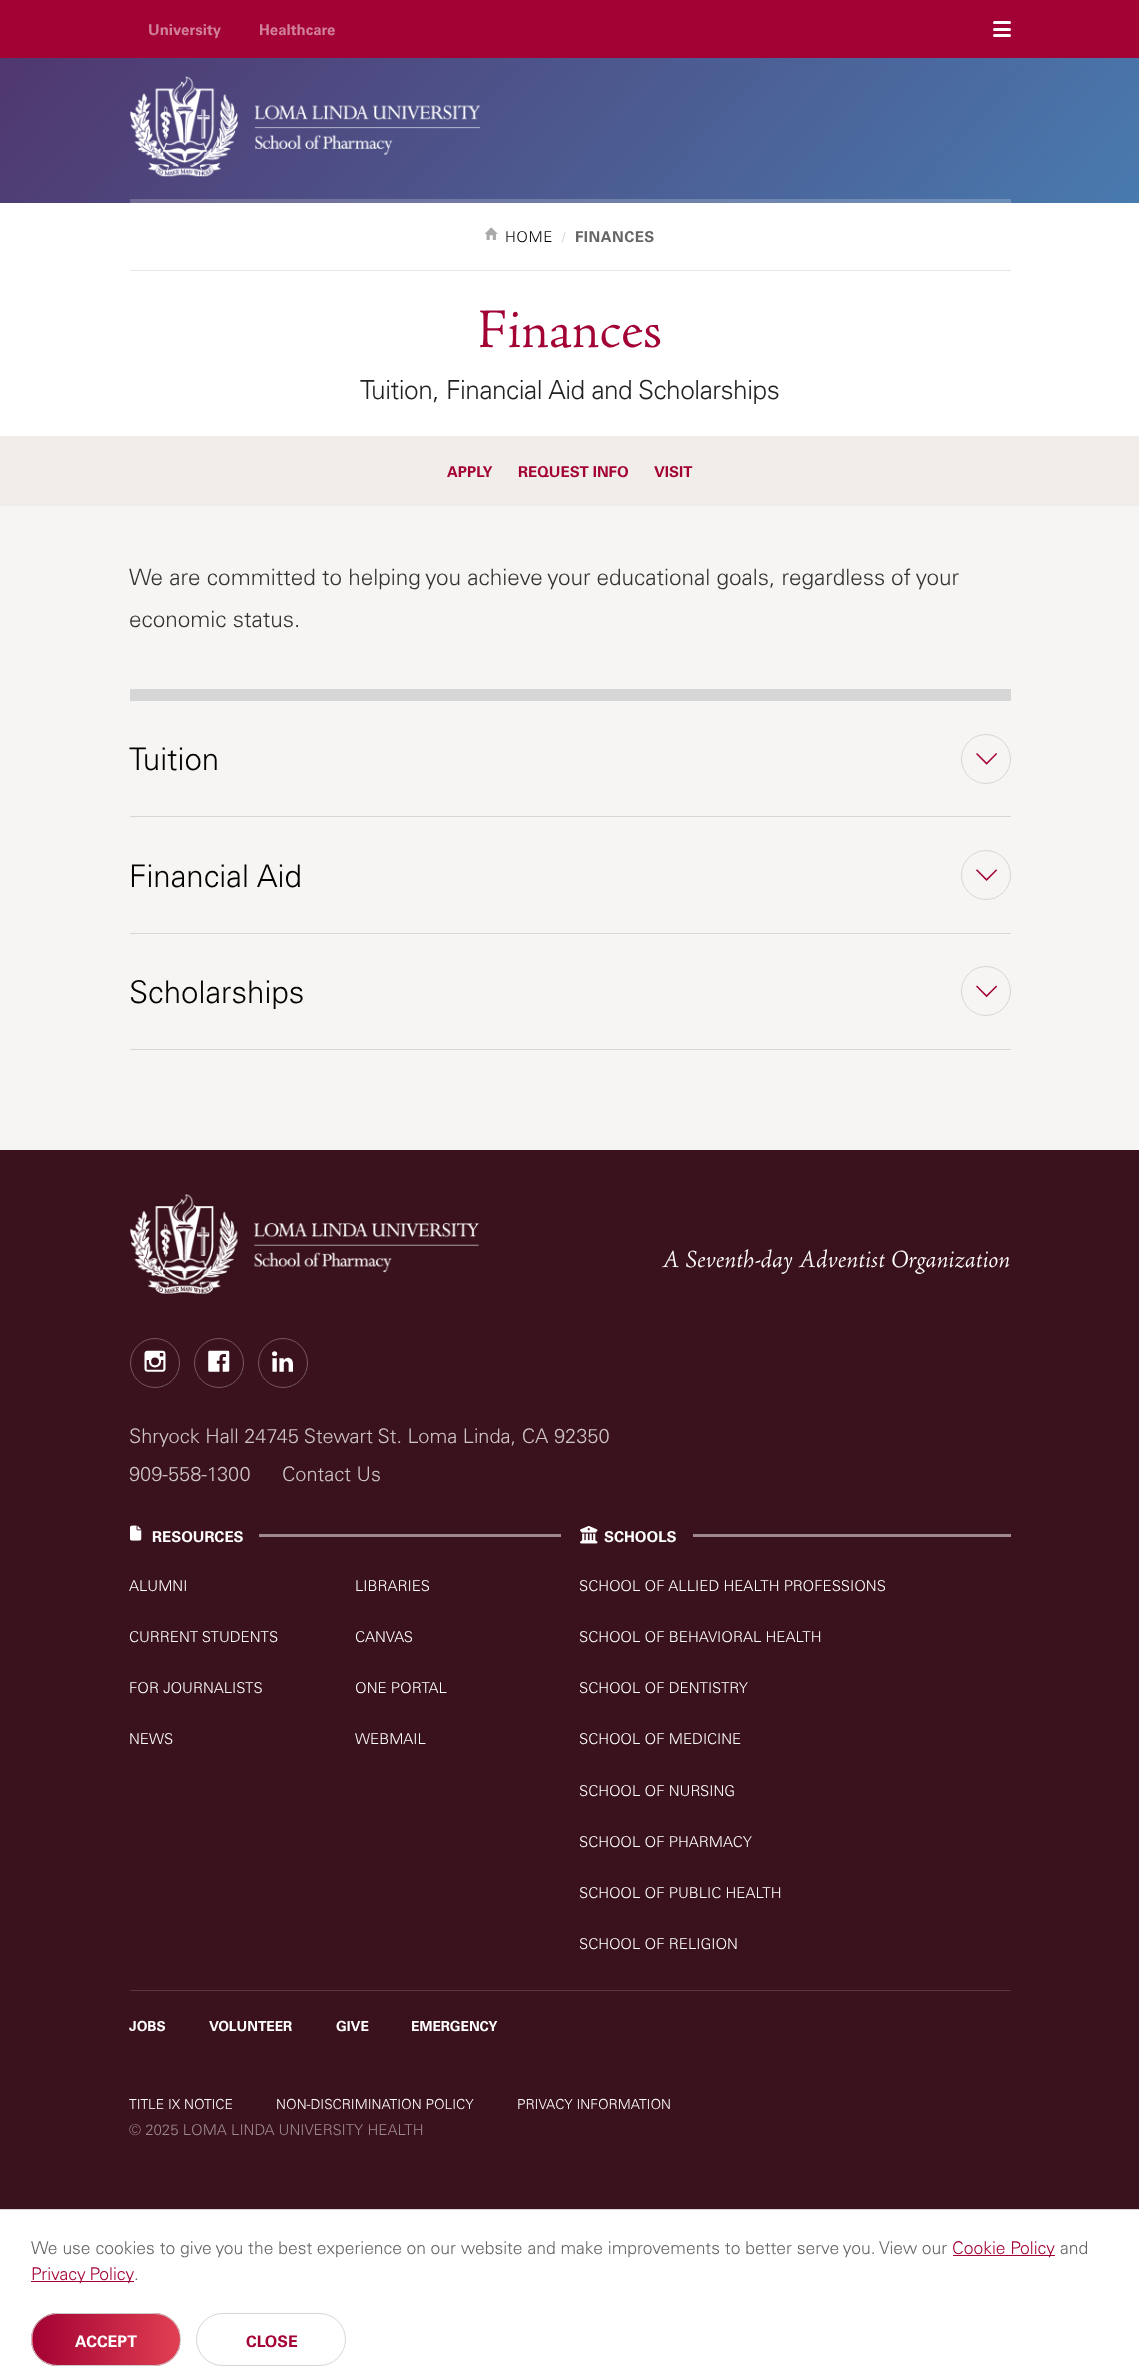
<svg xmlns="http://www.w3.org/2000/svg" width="1139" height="2378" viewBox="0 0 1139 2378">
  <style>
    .t1 { font: bold 15px 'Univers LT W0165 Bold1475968'; fill: #d1819a; }
    .t2 { font: 300 15px 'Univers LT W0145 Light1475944'; letter-spacing: 0.5px; fill: #000; }
    .t3 { font: 300 12px 'Univers LT W0145 Light1475944'; letter-spacing: 0.5px; fill: #ccc; }
    .t4 { font: bold 15px 'Univers LT W0165 Bold1475968'; letter-spacing: 0.5px; fill: #666; }
    .t5 { font: 300 56px 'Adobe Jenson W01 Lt'; fill: #a30234; }
    .t6 { font: 300 26.25px 'Univers LT W0145 Light1475944'; letter-spacing: -0.5px; fill: #1f2123; }
    .t7 { font: bold 15px 'Univers LT W0165 Bold1475968'; fill: #a30234; }
    .t8 { font: 300 22.5px 'Univers LT W0145 Light1475944'; fill: #333; }
    .t9 { font: 300 31.25px 'Univers LT W0145 Light1475944'; fill: #000; }
    .t10 { font: 300 25px 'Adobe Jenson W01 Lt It'; fill: #fff; }
    .t11 { font: 300 20px 'Univers LT W0145 Light1475944'; fill: #cec4c7; }
    .t12 { font: bold 15px 'Univers LT W0165 Bold1475968'; fill: #fff; }
    .t13 { font: 300 15px 'Univers LT W0145 Light1475944'; fill: #fff; }
    .t14 { font: bold 13.75px 'Univers LT W0165 Bold1475968'; fill: #fff; }
    .t15 { font: 300 13.75px 'Univers LT W0145 Light1475944'; fill: #fff; }
    .t16 { font: 300 15px 'Univers LT W0145 Light1475944'; fill: #9d898e; }
    .t17 { font: 300 17.5px 'Univers LT W0145 Light1475944'; fill: #666; }
    .t18 { font: 300 17.5px 'Univers LT W0145 Light1475944'; fill: #a30234; }
    .t19 { font: bold 16px 'Univers LT W0165 Bold1475968'; fill: #fff; }
    .t20 { font: bold 16px 'Univers LT W0165 Bold1475968'; fill: #a30234; }
  </style>
  <defs>
    <linearGradient id="g1" gradientUnits="userSpaceOnUse" x1="129" y1="-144" x2="1011" y2="650"><stop offset="0" stop-color="#50346c"/><stop offset="1" stop-color="#4789bd"/></linearGradient>
    <linearGradient id="g2" gradientUnits="userSpaceOnUse" x1="129" y1="-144" x2="1011" y2="650"><stop offset="0" stop-color="#735d89"/><stop offset="1" stop-color="#6ca1ca"/></linearGradient>
    <clipPath id="clip1"><rect x="31" y="2313" width="150" height="53" rx="26.5"/></clipPath>
    <linearGradient id="g3" gradientUnits="userSpaceOnUse" x1="-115" y1="2339" x2="33" y2="2339"><stop offset="0" stop-color="#a30234"/><stop offset="1" stop-color="#e13f52"/></linearGradient>
    <linearGradient id="g4" gradientUnits="userSpaceOnUse" x1="33" y1="2339" x2="180" y2="2339"><stop offset="0" stop-color="#a30234"/><stop offset="1" stop-color="#e13f52"/></linearGradient>
  </defs>
  <rect width="100%" height="100%" fill="#f7f5f3"/>
  <rect x="0" y="0" width="1139" height="58" fill="#a30234"/>
  <text x="148" y="35" class="t1">University</text>
  <text x="259" y="35" class="t1">Healthcare</text>
  <rect x="993" y="21" width="18" height="3" rx="1.5" fill="#fff"/>
  <rect x="993" y="34" width="18" height="3" rx="1.5" fill="#fff"/>
  <rect x="993" y="28" width="18" height="3" rx="1.5" fill="#fff"/>
  <rect x="0" y="58" width="1139" height="145" fill="url(#g1)"/>
  <image x="130" y="76" width="350" height="101" href="images/1.png"/>
  <rect x="130" y="199" width="881" height="4" fill="url(#g2)"/>
  <rect x="0" y="203" width="1139" height="233" fill="#fff"/>
  <rect x="130" y="270" width="881" height="1" fill="#e7e7e7"/>
  <image x="485" y="227" width="13" height="13" href="images/2.png"/>
  <text x="505" y="242" class="t2">HOME</text>
  <text x="562" y="241" class="t3">/</text>
  <text x="575" y="242" class="t4">FINANCES</text>
  <text x="477" y="347" class="t5">Finances</text>
  <text x="360" y="399" class="t6">Tuition, Financial Aid and Scholarships</text>
  <rect x="0" y="436" width="1139" height="70" fill="#f0edeb"/>
  <text x="447" y="477" class="t7">APPLY</text>
  <text x="518" y="477" class="t7">REQUEST INFO</text>
  <text x="654" y="477" class="t7">VISIT</text>
  <text x="129" y="585" class="t8">We are committed to helping you achieve your educational goals, regardless of your</text>
  <text x="129" y="627" class="t8">economic status.</text>
  <rect x="130" y="689" width="881" height="12" fill="#d6d6d6"/>
  <rect x="130" y="816" width="881" height="1" fill="#d6d6d6"/>
  <text x="129" y="770" class="t9">Tuition</text>
  <circle cx="986" cy="759" r="24.5" fill="none" stroke="#d6d6d6"/>
  <image x="976" y="753" width="21" height="12" href="images/3.png"/>
  <rect x="130" y="933" width="881" height="1" fill="#d6d6d6"/>
  <text x="129" y="887" class="t9">Financial Aid</text>
  <circle cx="986" cy="875" r="24.5" fill="none" stroke="#d6d6d6"/>
  <image x="976" y="869" width="22" height="12" href="images/4.png"/>
  <rect x="130" y="1049" width="881" height="1" fill="#d6d6d6"/>
  <text x="129" y="1003" class="t9">Scholarships</text>
  <circle cx="986" cy="991" r="24.5" fill="none" stroke="#d6d6d6"/>
  <image x="976" y="985" width="22" height="13" href="images/5.png"/>
  <rect x="0" y="1150" width="1139" height="1059" fill="#3a121d"/>
  <image x="130" y="1194" width="349" height="100" href="images/6.png"/>
  <text x="662" y="1267" class="t10">A Seventh-day Adventist Organization</text>
  <image x="144" y="1350" width="22" height="22" href="images/7.png"/>
  <circle cx="155" cy="1363" r="24.5" fill="none" stroke="#755961"/>
  <image x="208" y="1350" width="22" height="22" href="images/8.png"/>
  <circle cx="219" cy="1363" r="24.5" fill="none" stroke="#755961"/>
  <image x="272" y="1351" width="21" height="21" href="images/9.png"/>
  <circle cx="283" cy="1363" r="24.5" fill="none" stroke="#755961"/>
  <text x="129" y="1443" class="t11">Shryock Hall 24745 Stewart St. Loma Linda, CA 92350</text>
  <text x="129" y="1481" class="t11">909-558-1300</text>
  <text x="282" y="1481" class="t11">Contact Us</text>
  <image x="130" y="1525" width="12" height="16" href="images/10.png"/>
  <text x="152" y="1542" class="t12">RESOURCES</text>
  <rect x="259" y="1534" width="302" height="3" fill="#9d898e"/>
  <text x="129" y="1591" class="t13">ALUMNI</text>
  <text x="355" y="1591" class="t13">LIBRARIES</text>
  <text x="129" y="1642" class="t13">CURRENT STUDENTS</text>
  <text x="355" y="1642" class="t13">CANVAS</text>
  <text x="129" y="1693" class="t13">FOR JOURNALISTS</text>
  <text x="355" y="1693" class="t13">ONE PORTAL</text>
  <text x="129" y="1744" class="t13">NEWS</text>
  <text x="355" y="1744" class="t13">WEBMAIL</text>
  <image x="580" y="1526" width="18" height="18" href="images/11.png"/>
  <text x="604" y="1542" class="t12">SCHOOLS</text>
  <rect x="693" y="1534" width="318" height="3" fill="#9d898e"/>
  <text x="579" y="1591" class="t13">SCHOOL OF ALLIED HEALTH PROFESSIONS</text>
  <text x="579" y="1642" class="t13">SCHOOL OF BEHAVIORAL HEALTH</text>
  <text x="579" y="1693" class="t13">SCHOOL OF DENTISTRY</text>
  <text x="579" y="1744" class="t13">SCHOOL OF MEDICINE</text>
  <text x="579" y="1796" class="t13">SCHOOL OF NURSING</text>
  <text x="579" y="1847" class="t13">SCHOOL OF PHARMACY</text>
  <text x="579" y="1898" class="t13">SCHOOL OF PUBLIC HEALTH</text>
  <text x="579" y="1949" class="t13">SCHOOL OF RELIGION</text>
  <rect x="130" y="1990" width="881" height="1" fill="#58363f"/>
  <text x="129" y="2031" class="t14">JOBS</text>
  <text x="209" y="2031" class="t14">VOLUNTEER</text>
  <text x="336" y="2031" class="t14">GIVE</text>
  <text x="411" y="2031" class="t14">EMERGENCY</text>
  <text x="129" y="2109" class="t15">TITLE IX NOTICE</text>
  <text x="276" y="2109" class="t15">NON-DISCRIMINATION POLICY</text>
  <text x="517" y="2109" class="t15">PRIVACY INFORMATION</text>
  <text x="129" y="2135" class="t16">© 2025 LOMA LINDA UNIVERSITY HEALTH</text>
  <rect x="0" y="2210" width="1139" height="168" fill="#fff"/>
  <rect x="0" y="2209" width="1139" height="1" fill="#d6d6d6"/>
  <text x="31" y="2254" class="t17">We use cookies to give you the best experience on our website and make improvements to better serve you. View our</text>
  <rect x="953" y="2255" width="102" height="1" fill="#a30234"/>
  <text x="952" y="2254" class="t18">Cookie Policy</text>
  <text x="1060" y="2254" class="t17">and</text>
  <rect x="31" y="2281" width="103" height="1" fill="#a30234"/>
  <text x="31" y="2280" word-spacing="-1" class="t18">Privacy Policy</text>
  <text x="134" y="2280" class="t17">.</text>
  <g clip-path="url(#clip1)">
    <rect x="31" y="2329" width="2" height="21" fill="url(#g3)"/>
    <rect x="33" y="2313" width="147" height="53" fill="url(#g4)"/>
  </g>
  <rect x="31.5" y="2313.5" width="149" height="52" rx="26" fill="none" stroke="#ccc"/>
  <text x="75" y="2347" class="t19">ACCEPT</text>
  <rect x="196.5" y="2313.5" width="149" height="52" rx="26" fill="none" stroke="#d6d6d6"/>
  <text x="246" y="2347" class="t20">CLOSE</text>
</svg>
